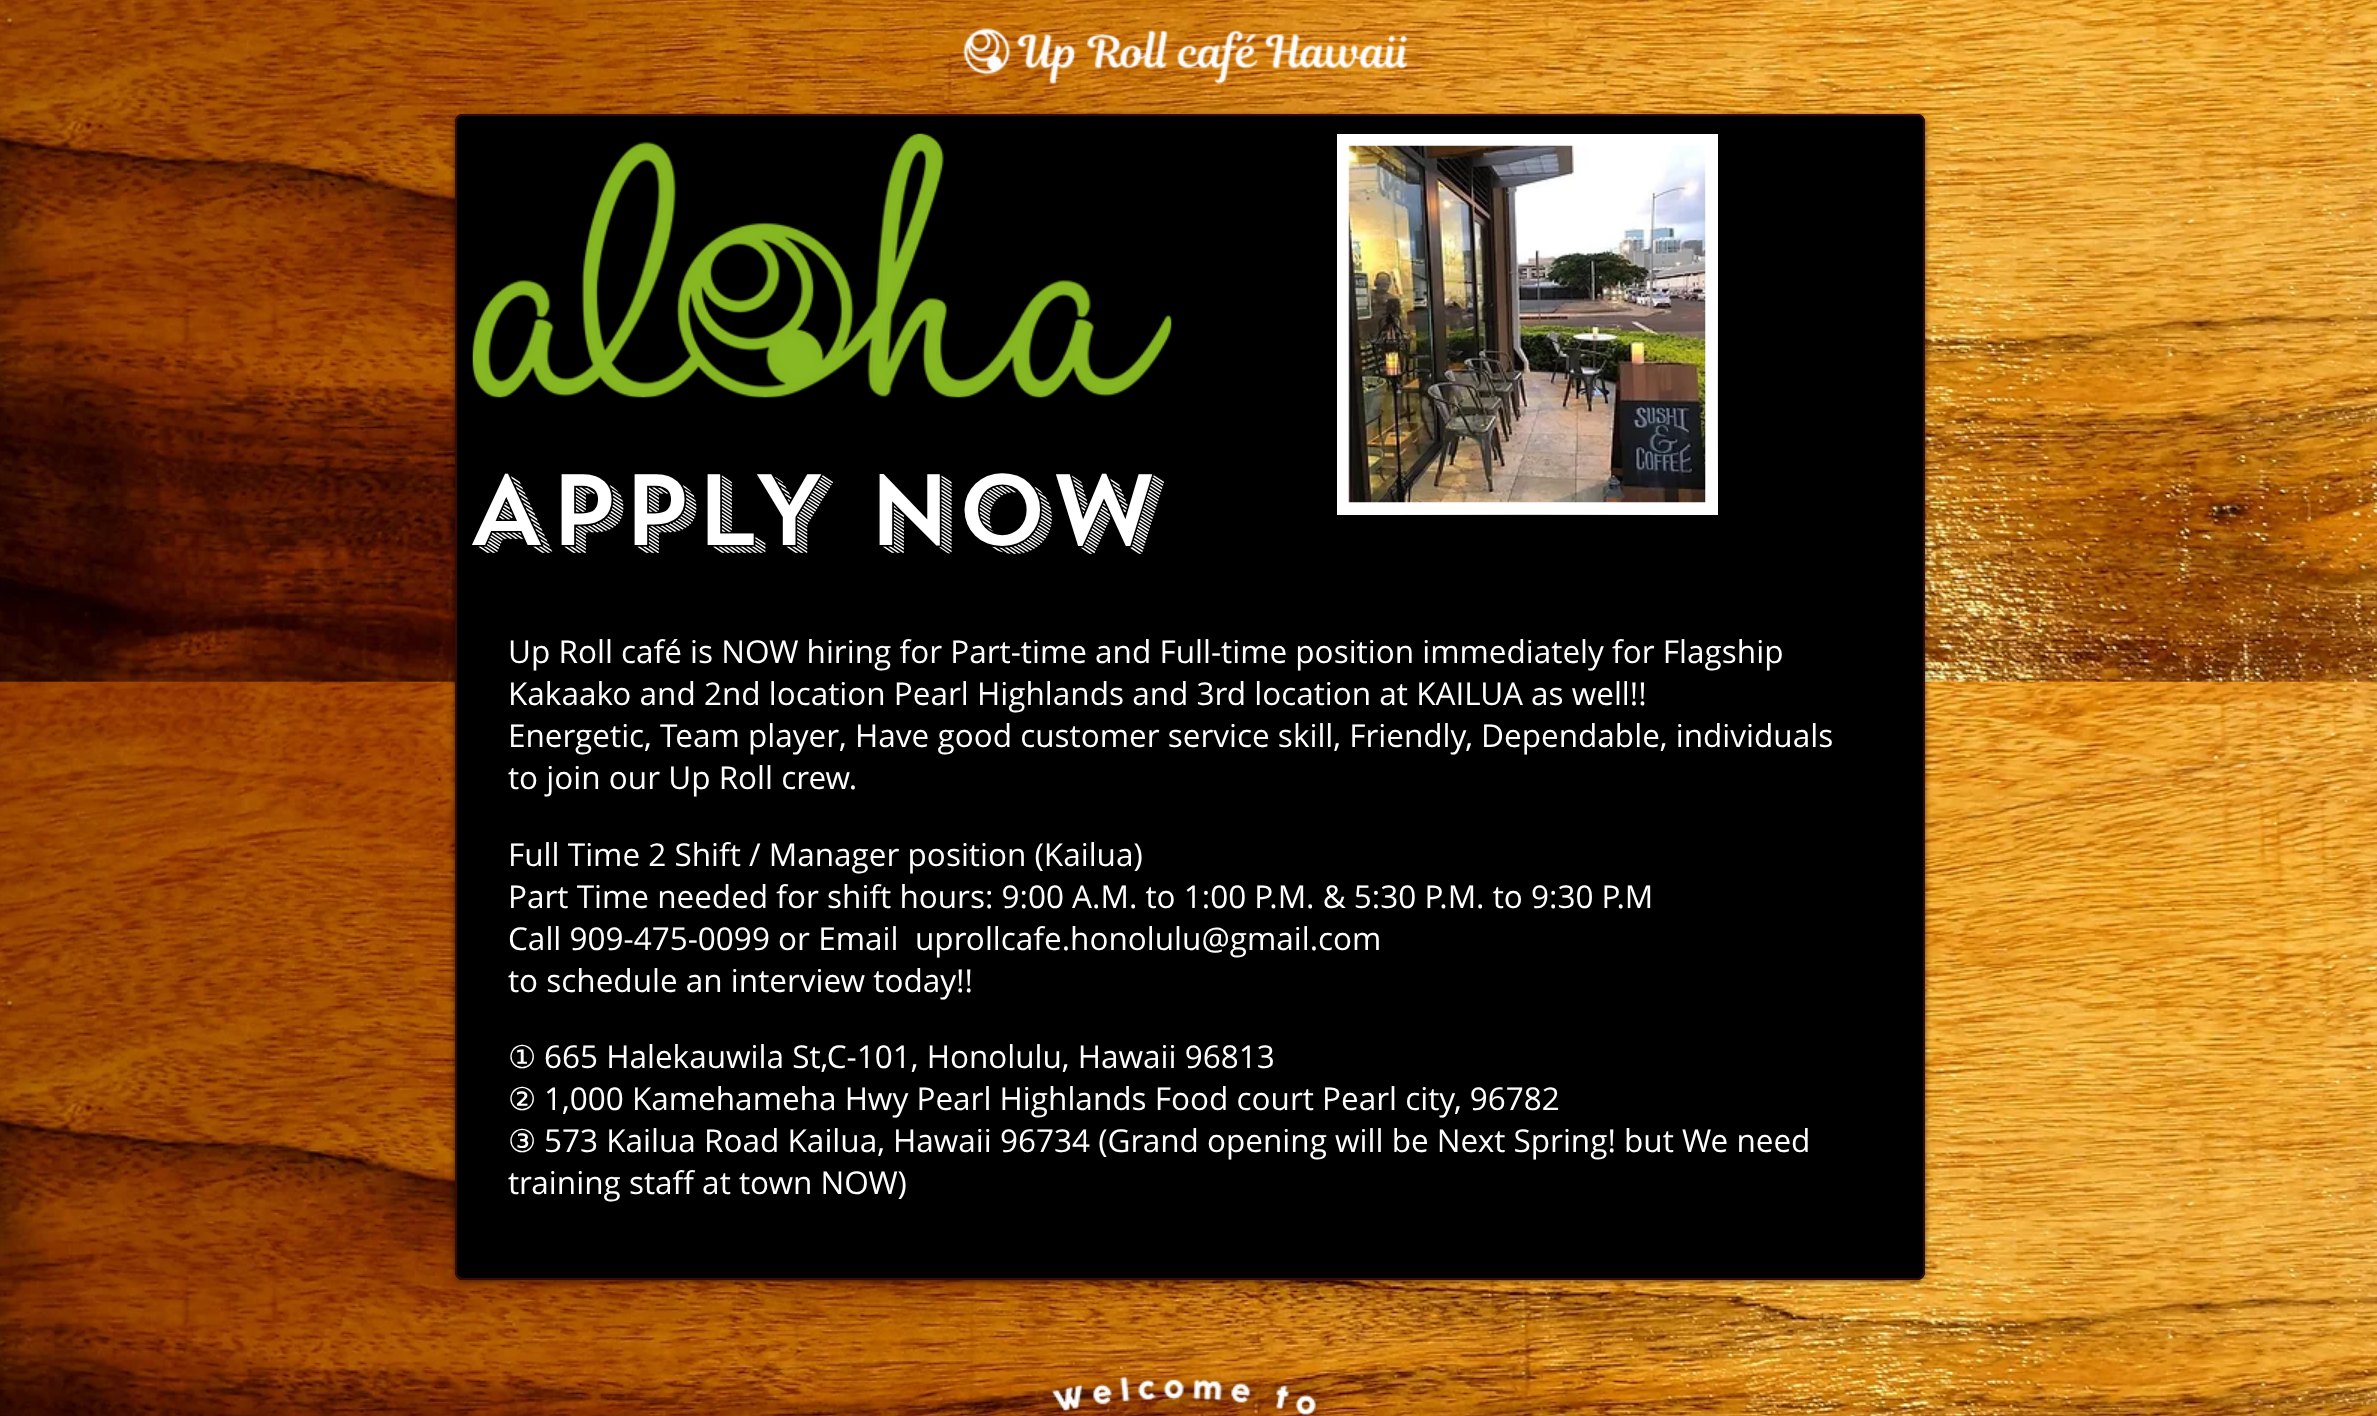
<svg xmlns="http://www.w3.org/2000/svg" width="2377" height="1416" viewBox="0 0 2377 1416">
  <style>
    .t1 { font: 500 100.5px 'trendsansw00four'; fill: #fff; }
    .t2 { font: 31.5px Open Sans; fill: #fff; }
    .t3 { font: 31.5px DejaVu Sans; fill: #fff; }
  </style>
  <rect width="100%" height="100%" fill="#fff"/>
  <image x="0" y="0" width="2377" height="1416" href="images/1.png"/>
  <image x="962" y="28" width="446" height="57" href="images/2.png"/>
  <rect x="455" y="116" width="1470" height="1165" rx="8" fill="#00000099" filter="blur(3px)"/>
  <rect x="455" y="114" width="1470" height="1166" rx="8" fill="#000"/>
  <image x="455" y="118" width="1" height="2" href="images/3.png"/>
  <rect x="456" y="115" width="1468" height="1164" rx="7" fill="none" stroke="#39080b" stroke-width="2"/>
  <image x="472" y="133" width="700" height="265" href="images/4.png"/>
  <rect x="1337" y="134" width="381" height="381" fill="#fff"/>
  <image x="1348" y="145" width="358" height="358" href="images/5.png"/>
  <image x="1402" y="514" width="250" height="1" href="images/6.png"/>
  <image x="1717" y="289" width="1" height="188" href="images/7.png"/>
  <text x="466" y="545" class="t1">APPLY NOW</text>
  <text x="508" y="663" class="t2">Up Roll café is NOW hiring for Part-time and Full-time position immediately for Flagship</text>
  <text x="508" y="705" class="t2">Kakaako and 2nd location Pearl Highlands and 3rd location at KAILUA as well!!</text>
  <text x="508" y="747" class="t2">Energetic, Team player, Have good customer service skill, Friendly, Dependable, individuals</text>
  <text x="508" y="789" class="t2">to join our Up Roll crew.</text>
  <text x="508" y="866" class="t2">Full Time 2 Shift / Manager position (Kailua)</text>
  <text x="508" y="908" class="t2">Part Time needed for shift hours: 9:00 A.M. to 1:00 P.M. &amp; 5:30 P.M. to 9:30 P.M</text>
  <text x="508" y="950" class="t2">Call 909-475-0099 or Email</text>
  <text x="915" y="950" class="t2">uprollcafe.honolulu@gmail.com</text>
  <text x="508" y="992" class="t2">to schedule an interview today!!</text>
  <text x="508" y="1068" class="t3">①</text>
  <text x="544" y="1068" class="t2">665 Halekauwila St,C-101, Honolulu, Hawaii 96813</text>
  <text x="508" y="1110" class="t3">②</text>
  <text x="544" y="1110" class="t2">1,000 Kamehameha Hwy Pearl Highlands Food court Pearl city, 96782</text>
  <text x="508" y="1152" class="t3">③</text>
  <text x="544" y="1152" class="t2">573 Kailua Road Kailua, Hawaii 96734 (Grand opening will be Next Spring! but We need</text>
  <text x="508" y="1194" class="t2">training staff at town NOW)</text>
  <image x="1050" y="1373" width="270" height="43" href="images/8.png"/>
</svg>
